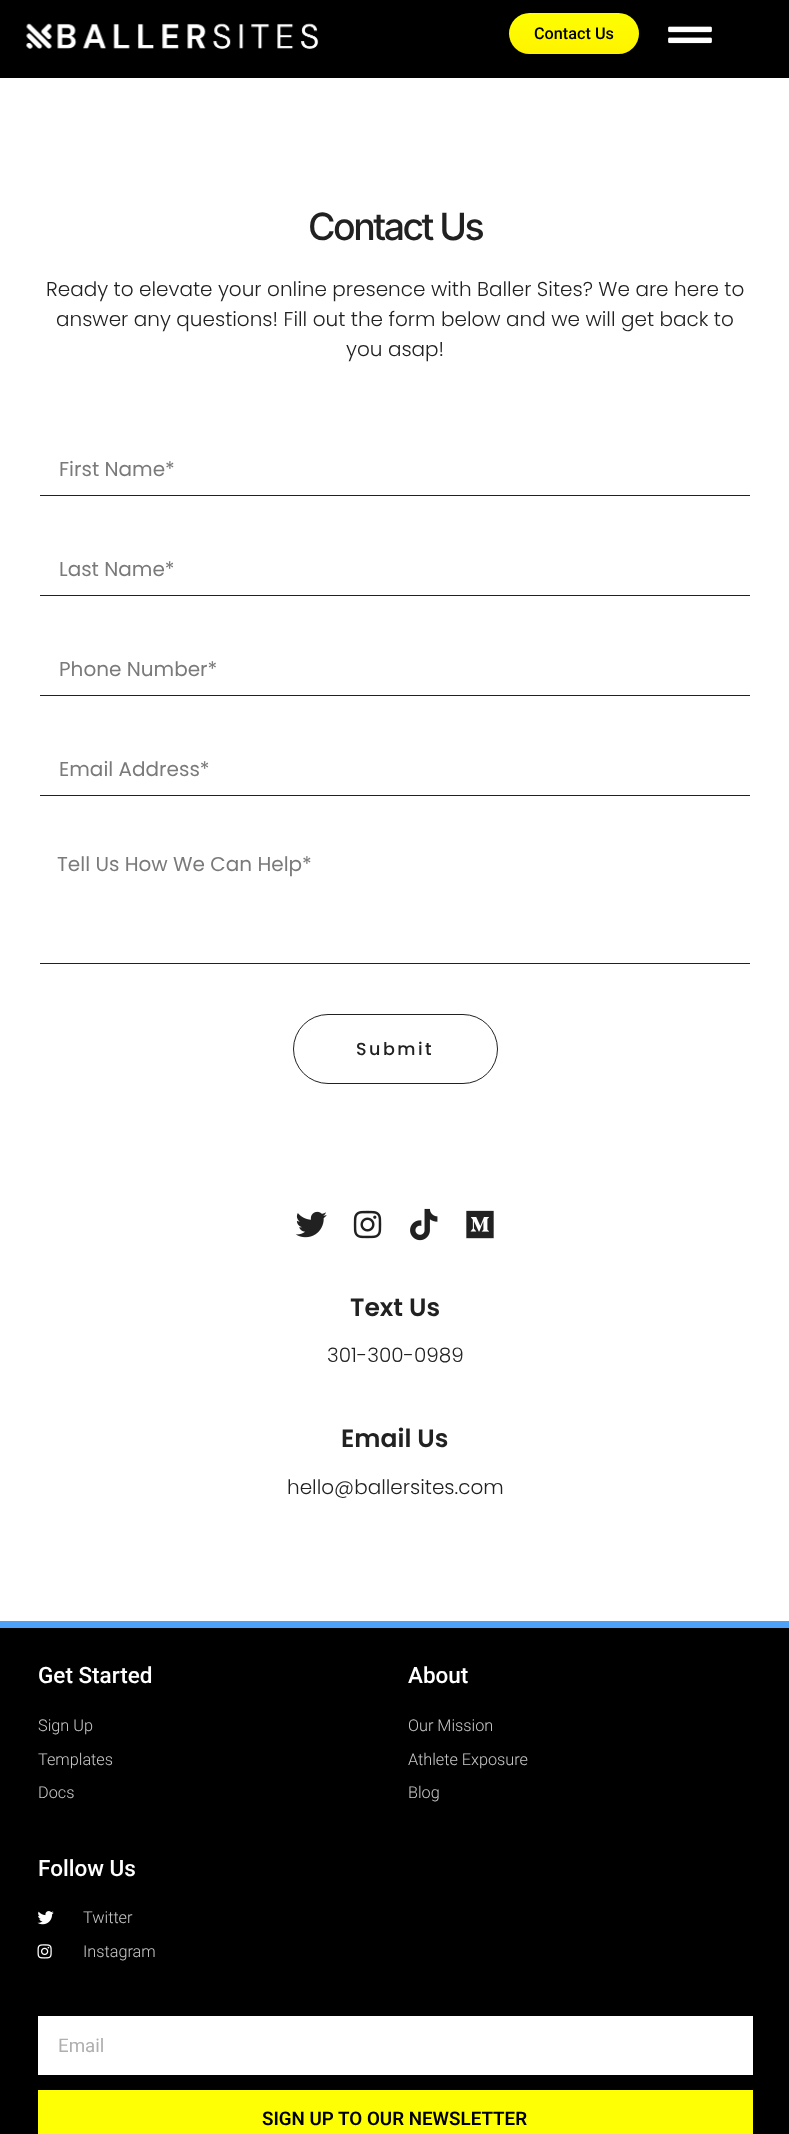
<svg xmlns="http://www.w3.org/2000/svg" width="789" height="2134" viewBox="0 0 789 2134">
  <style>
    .t1 { font: 500 16.25px Roboto; fill: #000; }
    .t2 { font: 500 37.5px Inter; letter-spacing: -2.5px; fill: #212121; }
    .t3 { font: 300 20px Poppins; fill: #212121; }
    .t4 { font: 20px Poppins; fill: #7a7a7a; }
    .t5 { font: 500 17.5px Poppins; letter-spacing: 2.5px; fill: #212121; }
    .t6 { font: 600 25px Poppins; fill: #212121; }
    .t7 { font: 500 22.5px Roboto; fill: #fff; }
    .t8 { font: 300 16.25px Roboto; fill: #c9c9c9; }
    .t9 { font: 18.75px Roboto; fill: #afafaf; }
    .t10 { font: 600 18.75px Roboto; fill: #000; }
  </style>
  <defs>
    <linearGradient id="g1" gradientUnits="userSpaceOnUse" x1="574" y1="12" x2="574" y2="54"><stop offset="0" stop-color="#feff00"/><stop offset="1" stop-color="#fff300"/></linearGradient>
  </defs>
  <rect width="100%" height="100%" fill="#fff"/>
  <rect x="0" y="0" width="789" height="78" fill="#000"/>
  <image x="26" y="23" width="293" height="26" href="images/1.png"/>
  <rect x="509" y="13" width="130" height="41" rx="20.5" fill="url(#g1)"/>
  <text x="534" y="39" class="t1">Contact Us</text>
  <image x="668" y="26" width="44" height="18" href="images/2.png"/>
  <text x="308" y="240" class="t2">Contact Us</text>
  <text x="46" y="296" class="t3">Ready to elevate your online presence with Baller Sites? We are here to</text>
  <text x="56" y="326" class="t3">answer any questions! Fill out the form below and we will get back to</text>
  <text x="346" y="356" class="t3">you asap!</text>
  <rect x="40" y="495" width="710" height="1" fill="#212121"/>
  <text x="59" y="476" class="t4">First Name*</text>
  <rect x="40" y="595" width="710" height="1" fill="#212121"/>
  <text x="59" y="576" class="t4">Last Name*</text>
  <rect x="40" y="695" width="710" height="1" fill="#212121"/>
  <text x="59" y="676" class="t4">Phone Number*</text>
  <rect x="40" y="795" width="710" height="1" fill="#212121"/>
  <text x="59" y="776" class="t4">Email Address*</text>
  <rect x="40" y="963" width="710" height="1" fill="#212121"/>
  <text x="57" y="871" class="t4">Tell Us How We Can Help*</text>
  <rect x="293.5" y="1014.5" width="204" height="69" rx="34.5" fill="none" stroke="#212121"/>
  <text x="356" y="1055" class="t5">Submit</text>
  <image x="295" y="1211" width="32" height="27" href="images/3.png"/>
  <image x="353" y="1210" width="29" height="29" href="images/4.png"/>
  <image x="410" y="1208" width="28" height="33" href="images/5.png"/>
  <image x="466" y="1210" width="28" height="29" href="images/6.png"/>
  <text x="350" y="1316" class="t6">Text Us</text>
  <text x="327" y="1362" class="t3">301-300-0989</text>
  <text x="341" y="1447" class="t6">Email Us</text>
  <text x="287" y="1494" class="t3">hello@ballersites.com</text>
  <rect x="0" y="1628" width="789" height="506" fill="#000"/>
  <rect x="0" y="1621" width="789" height="7" fill="#4da1f8"/>
  <text x="38" y="1683" class="t7">Get Started</text>
  <text x="38" y="1731" class="t8">Sign Up</text>
  <text x="38" y="1765" class="t8">Templates</text>
  <text x="38" y="1798" class="t8">Docs</text>
  <text x="408" y="1683" class="t7">About</text>
  <text x="408" y="1731" class="t8">Our Mission</text>
  <text x="408" y="1765" class="t8">Athlete Exposure</text>
  <text x="408" y="1798" class="t8">Blog</text>
  <text x="38" y="1876" class="t7">Follow Us</text>
  <image x="37" y="1911" width="17" height="14" href="images/7.png"/>
  <text x="83" y="1923" class="t8">Twitter</text>
  <image x="37" y="1944" width="15" height="15" href="images/8.png"/>
  <text x="83" y="1957" class="t8">Instagram</text>
  <rect x="38" y="2016" width="715" height="59" fill="#fff"/>
  <text x="58" y="2052" class="t9">Email</text>
  <rect x="38" y="2090" width="715" height="44" fill="#feff05"/>
  <text x="262" y="2125" class="t10">SIGN UP TO OUR NEWSLETTER</text>
</svg>
